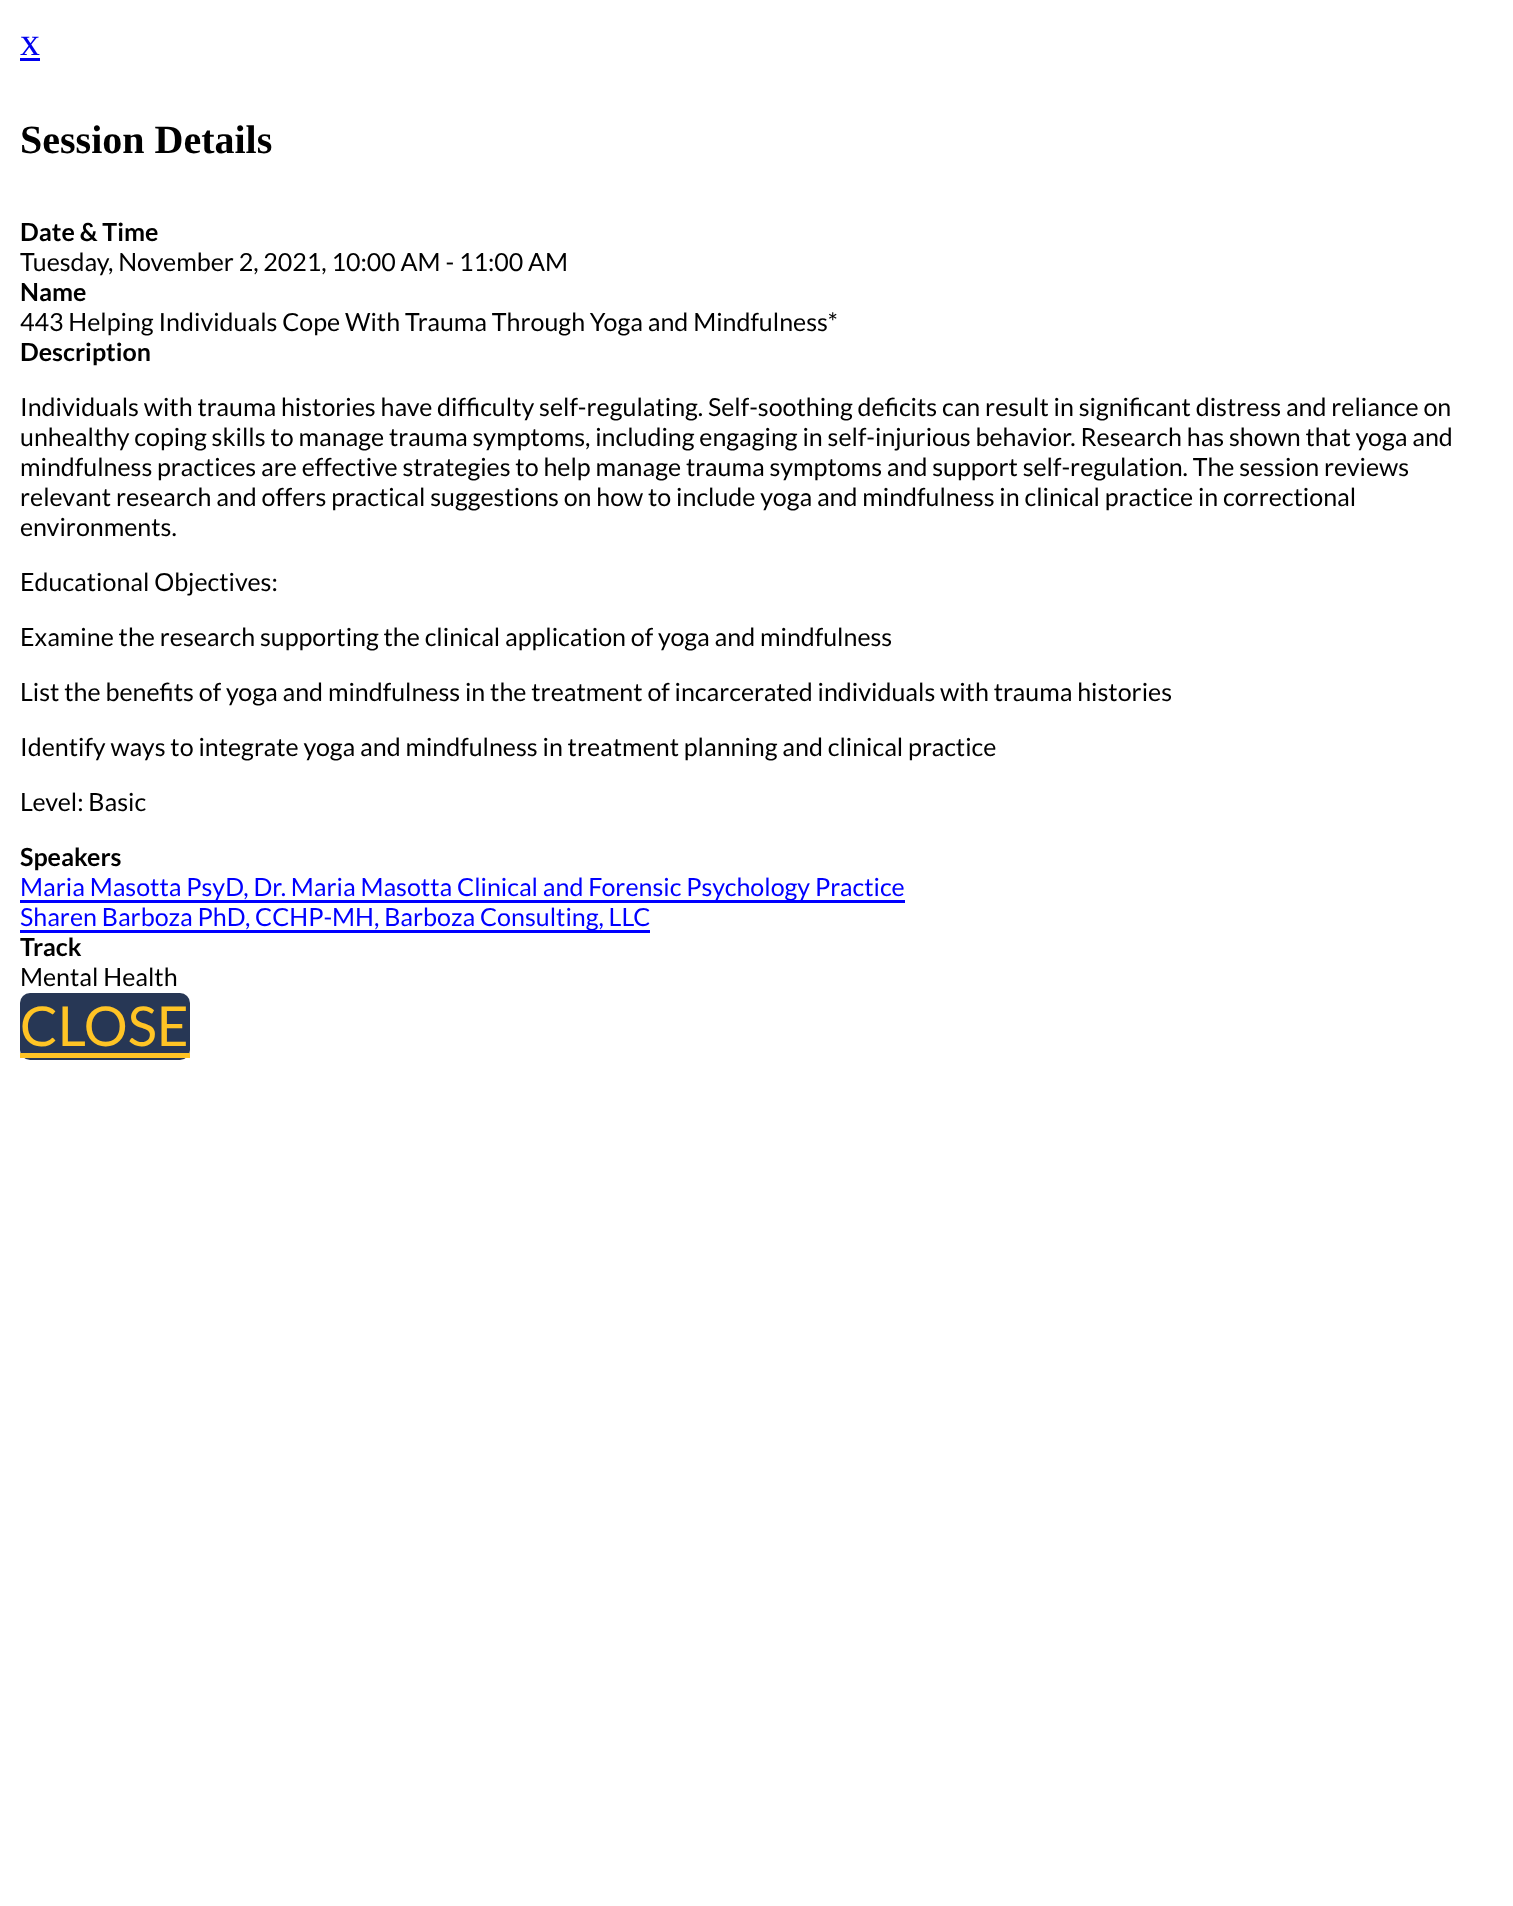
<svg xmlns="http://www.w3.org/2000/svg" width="1513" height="1906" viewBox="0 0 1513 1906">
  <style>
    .t1 { font: 40px Liberation Serif; fill: #00e; }
    .t2 { font: bold 40px Liberation Serif; fill: #000; }
    .t3 { font: bold 25px Lato; fill: #000; }
    .t4 { font: 25px Lato; fill: #000; }
    .t5 { font: 25px Lato; fill: #00f; }
    .t6 { font: 55px Lato; fill: #ffc425; }
  </style>
  <rect width="100%" height="100%" fill="#fff"/>
  <text x="20" y="55" class="t1">x</text>
  <rect x="20" y="58" width="20" height="3" fill="#00e"/>
  <text x="20" y="153" class="t2">Session Details</text>
  <text x="20" y="241" class="t3">Date &amp; Time</text>
  <text x="20" y="271" class="t4">Tuesday, November 2, 2021, 10:00 AM - 11:00 AM</text>
  <text x="20" y="301" class="t3">Name</text>
  <text x="20" y="331" class="t4">443 Helping Individuals Cope With Trauma Through Yoga and Mindfulness*</text>
  <text x="20" y="361" class="t3">Description</text>
  <text x="20" y="416" class="t4">Individuals with trauma histories have difficulty self-regulating. Self-soothing deficits can result in significant distress and reliance on</text>
  <text x="20" y="446" class="t4">unhealthy coping skills to manage trauma symptoms, including engaging in self-injurious behavior. Research has shown that yoga and</text>
  <text x="20" y="476" class="t4">mindfulness practices are effective strategies to help manage trauma symptoms and support self-regulation. The session reviews</text>
  <text x="20" y="506" class="t4">relevant research and offers practical suggestions on how to include yoga and mindfulness in clinical practice in correctional</text>
  <text x="20" y="536" class="t4">environments.</text>
  <text x="20" y="591" class="t4">Educational Objectives:</text>
  <text x="20" y="646" class="t4">Examine the research supporting the clinical application of yoga and mindfulness</text>
  <text x="20" y="701" class="t4">List the benefits of yoga and mindfulness in the treatment of incarcerated individuals with trauma histories</text>
  <text x="20" y="756" class="t4">Identify ways to integrate yoga and mindfulness in treatment planning and clinical practice</text>
  <text x="20" y="811" class="t4">Level: Basic</text>
  <text x="20" y="866" class="t3">Speakers</text>
  <rect x="20" y="900" width="885" height="3" fill="#00f"/>
  <text x="20" y="896" class="t5">Maria Masotta PsyD, Dr. Maria Masotta Clinical and Forensic Psychology Practice</text>
  <rect x="20" y="930" width="630" height="3" fill="#00f"/>
  <text x="20" y="926" class="t5">Sharen Barboza PhD, CCHP-MH, Barboza Consulting, LLC</text>
  <text x="20" y="956" class="t3">Track</text>
  <text x="20" y="986" class="t4">Mental Health</text>
  <rect x="20" y="993" width="170" height="67" rx="10" fill="#273755"/>
  <text x="20" y="1046" class="t6">CLOSE</text>
  <rect x="20" y="1053" width="170" height="5" fill="#ffc425"/>
</svg>
